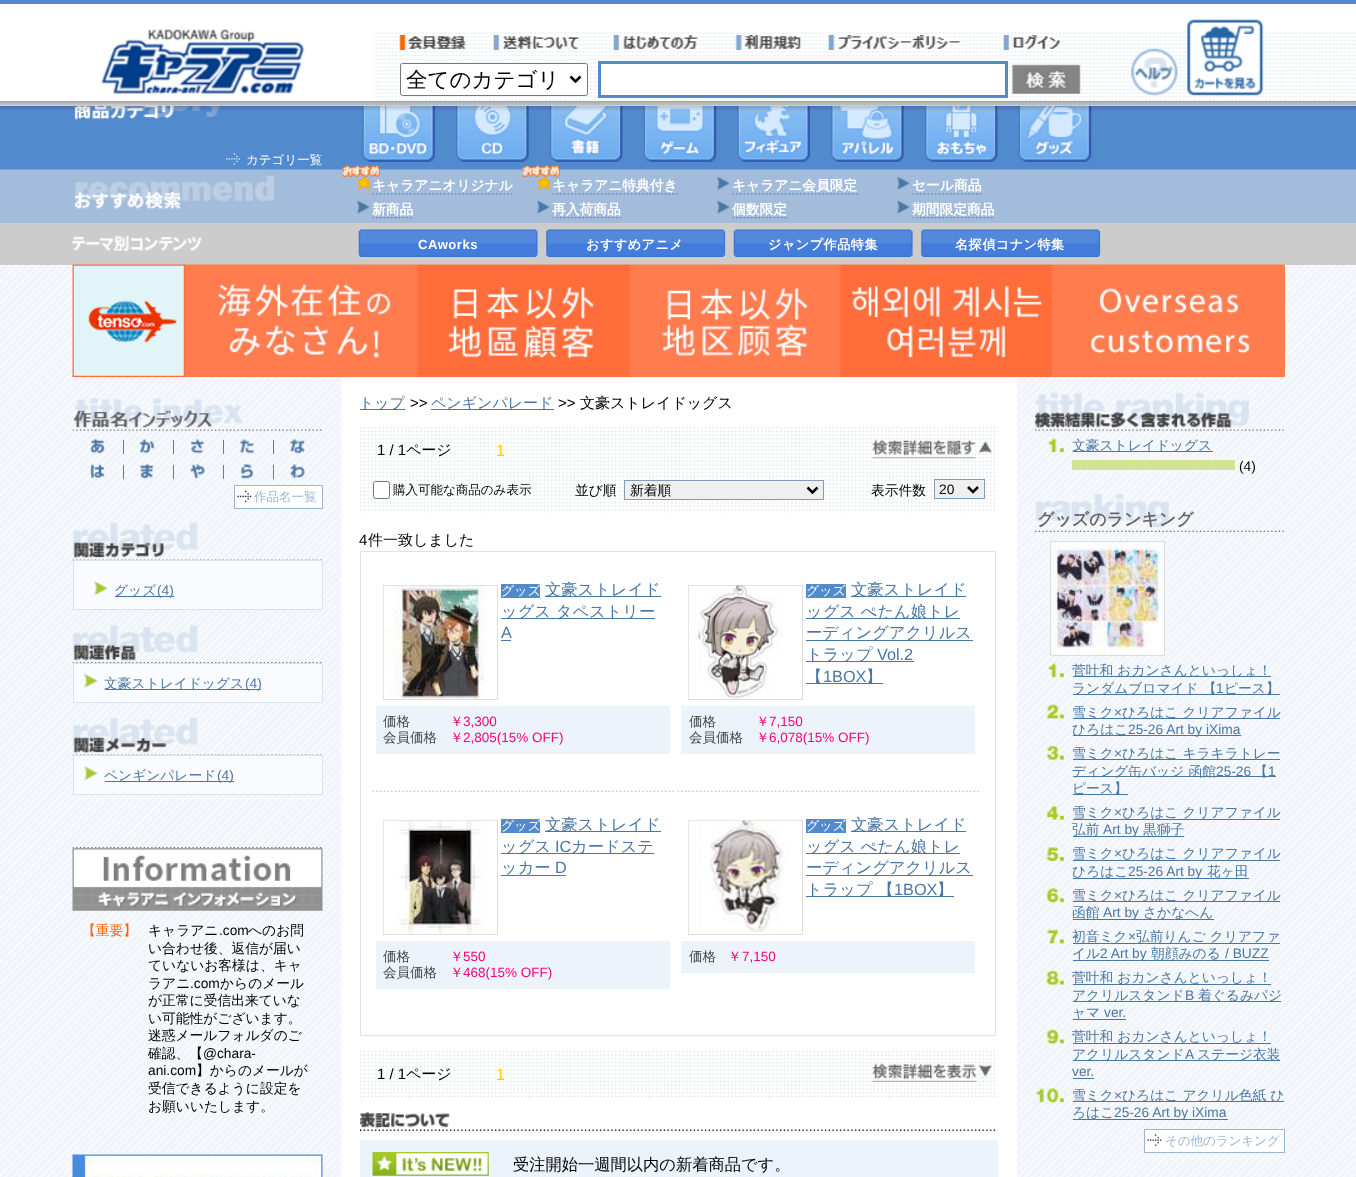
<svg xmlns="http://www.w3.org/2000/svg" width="1356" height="1177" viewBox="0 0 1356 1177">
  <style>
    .t1 { font: 500 21.5px WenQuanYi Zen Hei; fill: #000; }
    .t2 { font: 500 12.5px WenQuanYi Zen Hei; fill: #fff; }
    .t3 { font: bold 13.75px WenQuanYi Zen Hei; fill: #fff; }
    .t4 { font: bold 13.1px Liberation Sans; letter-spacing: 0.5px; fill: #fff; }
    .t5 { font: bold 13.1px WenQuanYi Zen Hei; letter-spacing: 0.5px; fill: #fff; }
    .t6 { font: 500 12.5px WenQuanYi Zen Hei; fill: #9bb6d1; }
    .t7 { font: 500 13.75px WenQuanYi Zen Hei; fill: #4a76a3; }
    .t8 { font: 13.75px Liberation Sans; fill: #4a76a3; }
    .t9 { font: 500 13.75px WenQuanYi Zen Hei; fill: #f60; }
    .t10 { font: 500 13.75px WenQuanYi Zen Hei; fill: #000; }
    .t11 { font: 13.75px Liberation Sans; fill: #000; }
    .t12 { font: 500 15px WenQuanYi Zen Hei; fill: #4a76a3; }
    .t13 { font: 15px Liberation Sans; fill: #000; }
    .t14 { font: 500 15px WenQuanYi Zen Hei; fill: #000; }
    .t15 { font: 16.25px Liberation Sans; fill: #fc0; }
    .t16 { font: 500 12.5px WenQuanYi Zen Hei; fill: #000; }
    .t17 { font: 500 13px WenQuanYi Zen Hei; fill: #fff; }
    .t18 { font: 500 16.25px WenQuanYi Zen Hei; fill: #4a76a3; }
    .t19 { font: 16.25px Liberation Sans; fill: #4a76a3; }
    .t20 { font: 500 13.5px WenQuanYi Zen Hei; fill: #434343; }
    .t21 { font: 500 13.5px WenQuanYi Zen Hei; fill: #f5007e; }
    .t22 { font: 13.5px Liberation Sans; fill: #f5007e; }
    .t23 { font: 500 16.25px WenQuanYi Zen Hei; fill: #000; }
    .t24 { font: bold 17px WenQuanYi Zen Hei; fill: #666; }
  </style>
  <rect width="100%" height="100%" fill="#fff"/>
  <image x="0" y="265" width="1356" height="912" href="images/1.png"/>
  <image x="158" y="32" width="1198" height="73" href="images/2.png"/>
  <rect x="0" y="0" width="1356" height="4" fill="#528ace"/>
  <rect x="158" y="32" width="216" height="72" fill="#fff"/>
  <image x="100" y="29" width="205" height="65" href="images/3.png"/>
  <image x="399" y="35" width="68" height="15" href="images/4.png"/>
  <image x="493" y="35" width="87" height="15" href="images/5.png"/>
  <image x="613" y="35" width="85" height="15" href="images/6.png"/>
  <image x="735" y="35" width="67" height="15" href="images/7.png"/>
  <image x="828" y="35" width="134" height="15" href="images/8.png"/>
  <image x="1003" y="35" width="58" height="15" href="images/9.png"/>
  <rect x="400.5" y="63.5" width="187" height="32" rx="2" fill="#fff" stroke="#767676"/>
  <path d="M570.5 76.5L575.5 81.5L580.5 76.5" fill="none" stroke="#000" stroke-width="2.5"/>
  <text x="406" y="87" class="t1">全てのカテゴリ</text>
  <rect x="601" y="66" width="404" height="28" fill="#fff"/>
  <rect x="599.5" y="62.5" width="407" height="34" fill="none" stroke="#528ace" stroke-width="3"/>
  <image x="1012" y="64" width="69" height="30" href="images/10.png"/>
  <image x="1131" y="48" width="48" height="48" href="images/11.png"/>
  <image x="1187" y="19" width="77" height="77" href="images/12.png"/>
  <rect x="0" y="106" width="1356" height="63" fill="#528ace"/>
  <image x="73" y="106" width="152" height="14" href="images/14.png"/>
  <image x="362" y="106" width="73" height="56" href="images/16.png"/>
  <image x="456" y="106" width="73" height="56" href="images/17.png"/>
  <image x="550" y="106" width="73" height="56" href="images/18.png"/>
  <image x="643" y="106" width="74" height="56" href="images/19.png"/>
  <image x="737" y="106" width="73" height="56" href="images/20.png"/>
  <image x="831" y="106" width="73" height="56" href="images/21.png"/>
  <image x="925" y="106" width="73" height="56" href="images/22.png"/>
  <image x="1018" y="106" width="74" height="56" href="images/23.png"/>
  <image x="0" y="101" width="1356" height="10" href="images/13.png"/>
  <image x="226" y="153" width="14" height="12" href="images/15.png"/>
  <text x="246" y="164" class="t2">カテゴリ一覧</text>
  <rect x="0" y="170" width="1356" height="53" fill="#a3bcdb"/>
  <rect x="0" y="169" width="1356" height="1" fill="#7ba3d5"/>
  <image x="74" y="175" width="201" height="35" href="images/24.png"/>
  <image x="357" y="177" width="13" height="13" href="images/25.png"/>
  <image x="342" y="165" width="38" height="12" href="images/26.png"/>
  <text x="372" y="190" class="t3">キャラアニオリジナル</text>
  <image x="372" y="193" width="141" height="2" href="images/27.png"/>
  <image x="537" y="177" width="13" height="13" href="images/25.png"/>
  <image x="522" y="165" width="38" height="12" href="images/28.png"/>
  <text x="552" y="190" class="t3">キャラアニ特典付き</text>
  <image x="552" y="193" width="126" height="2" href="images/29.png"/>
  <image x="717" y="177" width="13" height="13" href="images/30.png"/>
  <text x="732" y="190" class="t3">キャラアニ会員限定</text>
  <image x="732" y="193" width="126" height="2" href="images/29.png"/>
  <image x="897" y="177" width="13" height="13" href="images/30.png"/>
  <text x="912" y="190" class="t3">セール商品</text>
  <image x="912" y="193" width="70" height="2" href="images/31.png"/>
  <image x="357" y="200" width="13" height="14" href="images/32.png"/>
  <text x="372" y="214" class="t3">新商品</text>
  <image x="372" y="217" width="42" height="2" href="images/33.png"/>
  <image x="537" y="200" width="13" height="14" href="images/32.png"/>
  <text x="552" y="214" class="t3">再入荷商品</text>
  <image x="552" y="217" width="70" height="2" href="images/34.png"/>
  <image x="717" y="200" width="13" height="14" href="images/32.png"/>
  <text x="732" y="214" class="t3">個数限定</text>
  <image x="732" y="217" width="55" height="2" href="images/35.png"/>
  <image x="897" y="200" width="13" height="14" href="images/32.png"/>
  <text x="912" y="214" class="t3">期間限定商品</text>
  <image x="912" y="217" width="83" height="2" href="images/36.png"/>
  <rect x="0" y="223" width="1356" height="42" fill="#ccc"/>
  <image x="72" y="235" width="130" height="16" href="images/37.png"/>
  <image x="358" y="229" width="180" height="28" href="images/38.png"/>
  <text x="418" y="249" class="t4">CAworks</text>
  <image x="546" y="229" width="180" height="28" href="images/39.png"/>
  <text x="586" y="249" class="t5">おすすめアニメ</text>
  <image x="733" y="229" width="180" height="28" href="images/40.png"/>
  <text x="768" y="249" class="t5">ジャンプ作品特集</text>
  <image x="921" y="229" width="180" height="28" href="images/41.png"/>
  <text x="955" y="249" class="t5">名探偵コナン特集</text>
  <image x="72" y="264" width="1213" height="113" href="images/42.png"/>
  <rect x="341" y="377" width="676" height="800" fill="#fff"/>
  <image x="72" y="429" width="250" height="2" href="images/43.png"/>
  <image x="73" y="398" width="172" height="30" href="images/44.png"/>
  <image x="90" y="439" width="15" height="15" href="images/45.png"/>
  <image x="140" y="439" width="15" height="15" href="images/46.png"/>
  <rect x="123" y="440" width="1" height="14" fill="#787777"/>
  <image x="191" y="439" width="13" height="15" href="images/47.png"/>
  <rect x="173" y="440" width="1" height="14" fill="#787777"/>
  <image x="240" y="439" width="14" height="15" href="images/48.png"/>
  <rect x="223" y="440" width="1" height="14" fill="#787777"/>
  <image x="290" y="439" width="15" height="15" href="images/49.png"/>
  <rect x="273" y="440" width="1" height="14" fill="#787777"/>
  <image x="90" y="464" width="15" height="15" href="images/50.png"/>
  <image x="140" y="464" width="14" height="15" href="images/51.png"/>
  <rect x="123" y="465" width="1" height="14" fill="#787777"/>
  <image x="190" y="464" width="15" height="15" href="images/52.png"/>
  <rect x="173" y="465" width="1" height="14" fill="#787777"/>
  <image x="241" y="464" width="13" height="15" href="images/53.png"/>
  <rect x="223" y="465" width="1" height="14" fill="#787777"/>
  <image x="290" y="464" width="15" height="15" href="images/54.png"/>
  <rect x="273" y="465" width="1" height="14" fill="#787777"/>
  <rect x="235" y="486" width="87" height="22" fill="#fff"/>
  <image x="237" y="490" width="15" height="12" href="images/55.png"/>
  <rect x="234.5" y="485.5" width="88" height="23" fill="none" stroke="#9bb6d1"/>
  <text x="254" y="501" class="t6">作品名一覧</text>
  <image x="72" y="559" width="250" height="2" href="images/56.png"/>
  <image x="72" y="522" width="126" height="37" href="images/57.png"/>
  <rect x="73.5" y="560.5" width="249" height="49" fill="#fafbfe" stroke="#dae4f1"/>
  <image x="93" y="580" width="15" height="16" href="images/58.png"/>
  <rect x="115" y="596" width="59" height="1" fill="#4a76a3"/>
  <text x="114" y="595" class="t7">グッズ</text>
  <text x="157" y="595" class="t8">(4)</text>
  <image x="72" y="662" width="250" height="2" href="images/59.png"/>
  <image x="72" y="624" width="126" height="37" href="images/60.png"/>
  <rect x="73.5" y="663.5" width="249" height="39" fill="#fafbfe" stroke="#dae4f1"/>
  <image x="83" y="673" width="15" height="16" href="images/61.png"/>
  <rect x="105" y="689" width="156" height="1" fill="#4a76a3"/>
  <text x="104" y="688" class="t7">文豪ストレイドッグス</text>
  <text x="245" y="688" class="t8">(4)</text>
  <image x="72" y="754" width="250" height="2" href="images/62.png"/>
  <image x="72" y="717" width="126" height="37" href="images/63.png"/>
  <rect x="73.5" y="755.5" width="249" height="39" fill="#fafbfe" stroke="#dae4f1"/>
  <image x="83" y="765" width="15" height="16" href="images/64.png"/>
  <rect x="105" y="781" width="129" height="1" fill="#4a76a3"/>
  <text x="104" y="780" class="t7">ペンギンパレード</text>
  <text x="217" y="780" class="t8">(4)</text>
  <image x="72" y="847" width="250" height="2" href="images/65.png"/>
  <image x="72" y="848" width="251" height="63" href="images/66.png"/>
  <text x="82" y="935" class="t9">【重要】</text>
  <text x="148" y="935" class="t10">キャラアニ</text>
  <text x="219" y="935" class="t11">.com</text>
  <text x="248" y="935" class="t10">へのお問</text>
  <text x="148" y="953" class="t10">い合わせ後、返信が届い</text>
  <text x="148" y="970" class="t10">ていないお客様は、キャ</text>
  <text x="148" y="988" class="t10">ラアニ</text>
  <text x="190" y="988" class="t11">.com</text>
  <text x="220" y="988" class="t10">からのメール</text>
  <text x="148" y="1005" class="t10">が正常に受信出来ていな</text>
  <text x="148" y="1023" class="t10">い可能性がございます。</text>
  <text x="148" y="1040" class="t10">迷惑メールフォルダのご</text>
  <text x="148" y="1058" class="t10">確認、【</text>
  <text x="203" y="1058" class="t11">@chara-</text>
  <text x="148" y="1075" class="t11">ani.com</text>
  <text x="196" y="1075" class="t10">】からのメールが</text>
  <text x="148" y="1093" class="t10">受信できるように設定を</text>
  <text x="148" y="1111" class="t10">お願いいたします。</text>
  <image x="72" y="1175" width="1" height="2" href="images/67.png"/>
  <image x="72" y="1154" width="251" height="23" href="images/68.png"/>
  <rect x="360" y="409" width="45" height="1" fill="#4a76a3"/>
  <text x="359" y="408" class="t12">トップ</text>
  <text x="410" y="408" class="t13">&gt;&gt;</text>
  <rect x="431" y="409" width="123" height="1" fill="#4a76a3"/>
  <text x="431" y="408" class="t12">ペンギンパレード</text>
  <text x="558" y="408" class="t13">&gt;&gt;</text>
  <text x="580" y="408" class="t14">文豪ストレイドッグス</text>
  <image x="360" y="427" width="638" height="87" href="images/69.png"/>
  <text x="377" y="455" class="t13">1 / 1</text>
  <text x="406" y="455" class="t14">ページ</text>
  <text x="496" y="456" class="t15">1</text>
  <image x="872" y="439" width="121" height="20" href="images/70.png"/>
  <rect x="373.5" y="481.5" width="16" height="17" rx="2" fill="#fff" stroke="#767676"/>
  <text x="393" y="494" class="t16">購入可能な商品のみ表示</text>
  <text x="575" y="495" class="t10">並び順</text>
  <rect x="624.5" y="480.5" width="199" height="19" fill="#efefef" stroke="#7f9db9"/>
  <path d="M807.5 487.5L812.5 492.5L817.5 487.5" fill="none" stroke="#000" stroke-width="2.5"/>
  <text x="630" y="495" class="t10">新着順</text>
  <text x="871" y="495" class="t10">表示件数</text>
  <rect x="934.5" y="479.5" width="50" height="19" fill="#efefef" stroke="#7f9db9"/>
  <path d="M968 487L973 492L978 487" fill="none" stroke="#000" stroke-width="2.5"/>
  <text x="939" y="494" class="t11">20</text>
  <text x="359" y="545" class="t13">4</text>
  <text x="368" y="545" class="t14">件一致しました</text>
  <rect x="360.5" y="551.5" width="635" height="484" fill="none" stroke="#dae4f1"/>
  <rect x="501" y="584" width="39" height="14" fill="#528ace"/>
  <text x="501" y="595" class="t17">グッズ</text>
  <rect x="545" y="596" width="116" height="1" fill="#4a76a3"/>
  <text x="545" y="595" class="t18">文豪ストレイド</text>
  <rect x="501" y="618" width="154" height="1" fill="#4a76a3"/>
  <text x="501" y="617" class="t18">ッグス タペストリー</text>
  <text x="501" y="638" class="t19">A</text>
  <rect x="501" y="640" width="10" height="1" fill="#4a76a3"/>
  <rect x="376" y="706" width="294" height="48" fill="#edf3fa"/>
  <text x="383" y="726" class="t20">価格</text>
  <text x="450" y="726" class="t21">￥</text>
  <text x="463" y="726" class="t22">3,300</text>
  <text x="383" y="742" class="t20">会員価格</text>
  <text x="450" y="742" class="t21">￥</text>
  <text x="463" y="742" class="t22">2,805(15% OFF)</text>
  <rect x="383.5" y="585.5" width="114" height="114" fill="none" stroke="#ddd"/>
  <image x="383" y="585" width="113" height="114" href="images/71.png"/>
  <rect x="806" y="584" width="40" height="14" fill="#528ace"/>
  <text x="806" y="595" class="t17">グッズ</text>
  <rect x="851" y="596" width="115" height="1" fill="#4a76a3"/>
  <text x="851" y="595" class="t18">文豪ストレイド</text>
  <rect x="806" y="618" width="154" height="1" fill="#4a76a3"/>
  <text x="806" y="617" class="t18">ッグス ぺたん娘トレ</text>
  <rect x="806" y="640" width="167" height="1" fill="#4a76a3"/>
  <text x="806" y="638" class="t18">ーディングアクリルス</text>
  <rect x="806" y="661" width="108" height="1" fill="#4a76a3"/>
  <text x="806" y="660" class="t18">トラップ</text>
  <text x="877" y="660" class="t19">Vol.2</text>
  <rect x="806" y="683" width="77" height="1" fill="#4a76a3"/>
  <text x="806" y="682" class="t18">【</text>
  <text x="823" y="682" class="t19">1BOX</text>
  <text x="866" y="682" class="t18">】</text>
  <rect x="681" y="706" width="294" height="48" fill="#edf3fa"/>
  <text x="689" y="726" class="t20">価格</text>
  <text x="756" y="726" class="t21">￥</text>
  <text x="769" y="726" class="t22">7,150</text>
  <text x="689" y="742" class="t20">会員価格</text>
  <text x="756" y="742" class="t21">￥</text>
  <text x="769" y="742" class="t22">6,078(15% OFF)</text>
  <rect x="688.5" y="585.5" width="114" height="114" fill="none" stroke="#ddd"/>
  <image x="688" y="585" width="113" height="114" href="images/72.png"/>
  <image x="372" y="790" width="302" height="2" href="images/73.png"/>
  <rect x="501" y="819" width="39" height="14" fill="#528ace"/>
  <text x="501" y="830" class="t17">グッズ</text>
  <rect x="545" y="831" width="116" height="1" fill="#4a76a3"/>
  <text x="545" y="830" class="t18">文豪ストレイド</text>
  <rect x="501" y="853" width="153" height="1" fill="#4a76a3"/>
  <text x="501" y="852" class="t18">ッグス</text>
  <text x="555" y="852" class="t19">IC</text>
  <text x="571" y="852" class="t18">カードステ</text>
  <text x="501" y="873" class="t18">ッカー</text>
  <rect x="501" y="875" width="65" height="1" fill="#4a76a3"/>
  <text x="555" y="873" class="t19">D</text>
  <rect x="376" y="941" width="294" height="48" fill="#edf3fa"/>
  <text x="383" y="961" class="t20">価格</text>
  <text x="450" y="961" class="t21">￥</text>
  <text x="463" y="961" class="t22">550</text>
  <text x="383" y="977" class="t20">会員価格</text>
  <text x="450" y="977" class="t21">￥</text>
  <text x="463" y="977" class="t22">468(15% OFF)</text>
  <rect x="383.5" y="820.5" width="114" height="114" fill="none" stroke="#ddd"/>
  <image x="383" y="820" width="113" height="114" href="images/74.png"/>
  <image x="677" y="790" width="302" height="2" href="images/75.png"/>
  <rect x="806" y="819" width="40" height="14" fill="#528ace"/>
  <text x="806" y="830" class="t17">グッズ</text>
  <rect x="851" y="831" width="115" height="1" fill="#4a76a3"/>
  <text x="851" y="830" class="t18">文豪ストレイド</text>
  <rect x="806" y="853" width="154" height="1" fill="#4a76a3"/>
  <text x="806" y="852" class="t18">ッグス ぺたん娘トレ</text>
  <rect x="806" y="875" width="167" height="1" fill="#4a76a3"/>
  <text x="806" y="873" class="t18">ーディングアクリルス</text>
  <rect x="806" y="896" width="148" height="1" fill="#4a76a3"/>
  <text x="806" y="895" class="t18">トラップ 【</text>
  <text x="894" y="895" class="t19">1BOX</text>
  <text x="937" y="895" class="t18">】</text>
  <rect x="681" y="941" width="294" height="32" fill="#edf3fa"/>
  <text x="689" y="961" class="t20">価格</text>
  <text x="728" y="961" class="t21">￥</text>
  <text x="742" y="961" class="t22">7,150</text>
  <rect x="688.5" y="820.5" width="114" height="114" fill="none" stroke="#ddd"/>
  <image x="688" y="820" width="113" height="113" href="images/76.png"/>
  <image x="360" y="1051" width="638" height="46" href="images/77.png"/>
  <text x="377" y="1079" class="t13">1 / 1</text>
  <text x="406" y="1079" class="t14">ページ</text>
  <text x="496" y="1080" class="t15">1</text>
  <image x="872" y="1063" width="121" height="19" href="images/78.png"/>
  <image x="360" y="1129" width="638" height="2" href="images/79.png"/>
  <image x="360" y="1112" width="638" height="19" href="images/80.png"/>
  <rect x="360" y="1140" width="638" height="37" fill="#edf3fa"/>
  <image x="372" y="1152" width="117" height="24" href="images/81.png"/>
  <text x="513" y="1170" class="t23">受注開始一週間以内の新着商品です。</text>
  <image x="1035" y="429" width="249" height="2" href="images/82.png"/>
  <image x="1035" y="392" width="214" height="37" href="images/83.png"/>
  <image x="1048" y="438" width="16" height="15" href="images/84.png"/>
  <rect x="1073" y="451" width="140" height="1" fill="#4a76a3"/>
  <text x="1072" y="450" class="t7">文豪ストレイドッグス</text>
  <rect x="1072" y="460" width="163" height="10" fill="#d2e494"/>
  <text x="1239" y="471" class="t11">(4)</text>
  <image x="1035" y="493" width="134" height="35" href="images/85.png"/>
  <text x="1037" y="525" class="t24">グッズのランキング</text>
  <image x="1035" y="530" width="249" height="2" href="images/86.png"/>
  <rect x="1050.5" y="541.5" width="114" height="114" fill="none" stroke="#ddd"/>
  <image x="1051" y="542" width="113" height="113" href="images/87.png"/>
  <image x="1048" y="663" width="16" height="15" href="images/88.png"/>
  <rect x="1073" y="676" width="198" height="1" fill="#4a76a3"/>
  <text x="1072" y="675" class="t7">菅叶和 おカンさんといっしょ！</text>
  <rect x="1073" y="694" width="207" height="1" fill="#4a76a3"/>
  <text x="1072" y="693" class="t7">ランダムブロマイド 【</text>
  <text x="1216" y="693" class="t8">1</text>
  <text x="1224" y="693" class="t7">ピース】</text>
  <image x="1046" y="704" width="18" height="15" href="images/89.png"/>
  <rect x="1073" y="718" width="207" height="1" fill="#4a76a3"/>
  <text x="1072" y="717" class="t7">雪ミク</text>
  <text x="1114" y="717" class="t8">×</text>
  <text x="1122" y="717" class="t7">ひろはこ クリアファイル</text>
  <rect x="1073" y="735" width="168" height="1" fill="#4a76a3"/>
  <text x="1072" y="734" class="t7">ひろはこ</text>
  <text x="1128" y="734" class="t8">25-26 Art by iXima</text>
  <image x="1046" y="745" width="18" height="16" href="images/90.png"/>
  <rect x="1073" y="759" width="207" height="1" fill="#4a76a3"/>
  <text x="1072" y="758" class="t7">雪ミク</text>
  <text x="1114" y="758" class="t8">×</text>
  <text x="1122" y="758" class="t7">ひろはこ キラキラトレー</text>
  <rect x="1073" y="776" width="203" height="1" fill="#4a76a3"/>
  <text x="1072" y="776" class="t7">ディング缶バッジ 函館</text>
  <text x="1216" y="776" class="t8">25-26</text>
  <text x="1254" y="776" class="t7">【</text>
  <text x="1268" y="776" class="t8">1</text>
  <rect x="1073" y="794" width="55" height="1" fill="#4a76a3"/>
  <text x="1072" y="793" class="t7">ピース】</text>
  <image x="1046" y="805" width="18" height="15" href="images/91.png"/>
  <text x="1072" y="817" class="t7">雪ミク</text>
  <text x="1114" y="817" class="t8">×</text>
  <rect x="1073" y="819" width="207" height="1" fill="#4a76a3"/>
  <text x="1122" y="817" class="t7">ひろはこ クリアファイル</text>
  <text x="1072" y="834" class="t7">弘前</text>
  <rect x="1073" y="836" width="111" height="1" fill="#4a76a3"/>
  <text x="1103" y="834" class="t8">Art by</text>
  <text x="1143" y="834" class="t7">黒獅子</text>
  <image x="1046" y="847" width="18" height="15" href="images/92.png"/>
  <text x="1072" y="858" class="t7">雪ミク</text>
  <text x="1114" y="858" class="t8">×</text>
  <rect x="1073" y="860" width="207" height="1" fill="#4a76a3"/>
  <text x="1122" y="858" class="t7">ひろはこ クリアファイル</text>
  <rect x="1073" y="878" width="176" height="1" fill="#4a76a3"/>
  <text x="1072" y="876" class="t7">ひろはこ</text>
  <text x="1128" y="876" class="t8">25-26 Art by</text>
  <text x="1207" y="876" class="t7">花ヶ田</text>
  <image x="1046" y="888" width="18" height="16" href="images/93.png"/>
  <rect x="1073" y="901" width="207" height="1" fill="#4a76a3"/>
  <text x="1072" y="900" class="t7">雪ミク</text>
  <text x="1114" y="900" class="t8">×</text>
  <text x="1122" y="900" class="t7">ひろはこ クリアファイル</text>
  <text x="1072" y="917" class="t7">函館</text>
  <rect x="1073" y="919" width="141" height="1" fill="#4a76a3"/>
  <text x="1103" y="917" class="t8">Art by</text>
  <text x="1143" y="917" class="t7">さかなへん</text>
  <image x="1047" y="929" width="17" height="15" href="images/94.png"/>
  <text x="1072" y="941" class="t7">初音ミク</text>
  <text x="1128" y="941" class="t8">×</text>
  <rect x="1073" y="943" width="207" height="1" fill="#4a76a3"/>
  <text x="1136" y="941" class="t7">弘前りんご クリアファ</text>
  <text x="1072" y="958" class="t7">イル</text>
  <rect x="1073" y="960" width="196" height="1" fill="#4a76a3"/>
  <text x="1100" y="958" class="t8">2 Art by</text>
  <text x="1151" y="958" class="t7">朝顔みのる</text>
  <text x="1225" y="958" class="t8">/ BUZZ</text>
  <image x="1046" y="970" width="18" height="16" href="images/95.png"/>
  <rect x="1073" y="984" width="198" height="1" fill="#4a76a3"/>
  <text x="1072" y="982" class="t7">菅叶和 おカンさんといっしょ！</text>
  <rect x="1073" y="1001" width="208" height="1" fill="#4a76a3"/>
  <text x="1072" y="1000" class="t7">アクリルスタンド</text>
  <text x="1185" y="1000" class="t8">B</text>
  <text x="1198" y="1000" class="t7">着ぐるみパジ</text>
  <text x="1072" y="1017" class="t7">ャマ</text>
  <rect x="1073" y="1019" width="53" height="1" fill="#4a76a3"/>
  <text x="1104" y="1017" class="t8">ver.</text>
  <image x="1046" y="1029" width="18" height="16" href="images/96.png"/>
  <rect x="1073" y="1043" width="198" height="1" fill="#4a76a3"/>
  <text x="1072" y="1041" class="t7">菅叶和 おカンさんといっしょ！</text>
  <rect x="1073" y="1060" width="207" height="1" fill="#4a76a3"/>
  <text x="1072" y="1059" class="t7">アクリルスタンド</text>
  <text x="1185" y="1059" class="t8">A</text>
  <text x="1197" y="1059" class="t7">ステージ衣装</text>
  <text x="1072" y="1076" class="t8">ver.</text>
  <rect x="1073" y="1078" width="21" height="1" fill="#4a76a3"/>
  <image x="1036" y="1088" width="28" height="16" href="images/97.png"/>
  <rect x="1073" y="1101" width="211" height="1" fill="#4a76a3"/>
  <text x="1072" y="1100" class="t7">雪ミク</text>
  <text x="1114" y="1100" class="t8">×</text>
  <text x="1122" y="1100" class="t7">ひろはこ アクリル色紙 ひ</text>
  <rect x="1073" y="1119" width="155" height="1" fill="#4a76a3"/>
  <text x="1072" y="1117" class="t7">ろはこ</text>
  <text x="1114" y="1117" class="t8">25-26 Art by iXima</text>
  <rect x="1145" y="1130" width="139" height="22" fill="#fff"/>
  <image x="1147" y="1134" width="15" height="12" href="images/98.png"/>
  <rect x="1144.5" y="1129.5" width="140" height="23" fill="none" stroke="#9bb6d1"/>
  <text x="1165" y="1145" class="t6">その他のランキング</text>
</svg>
